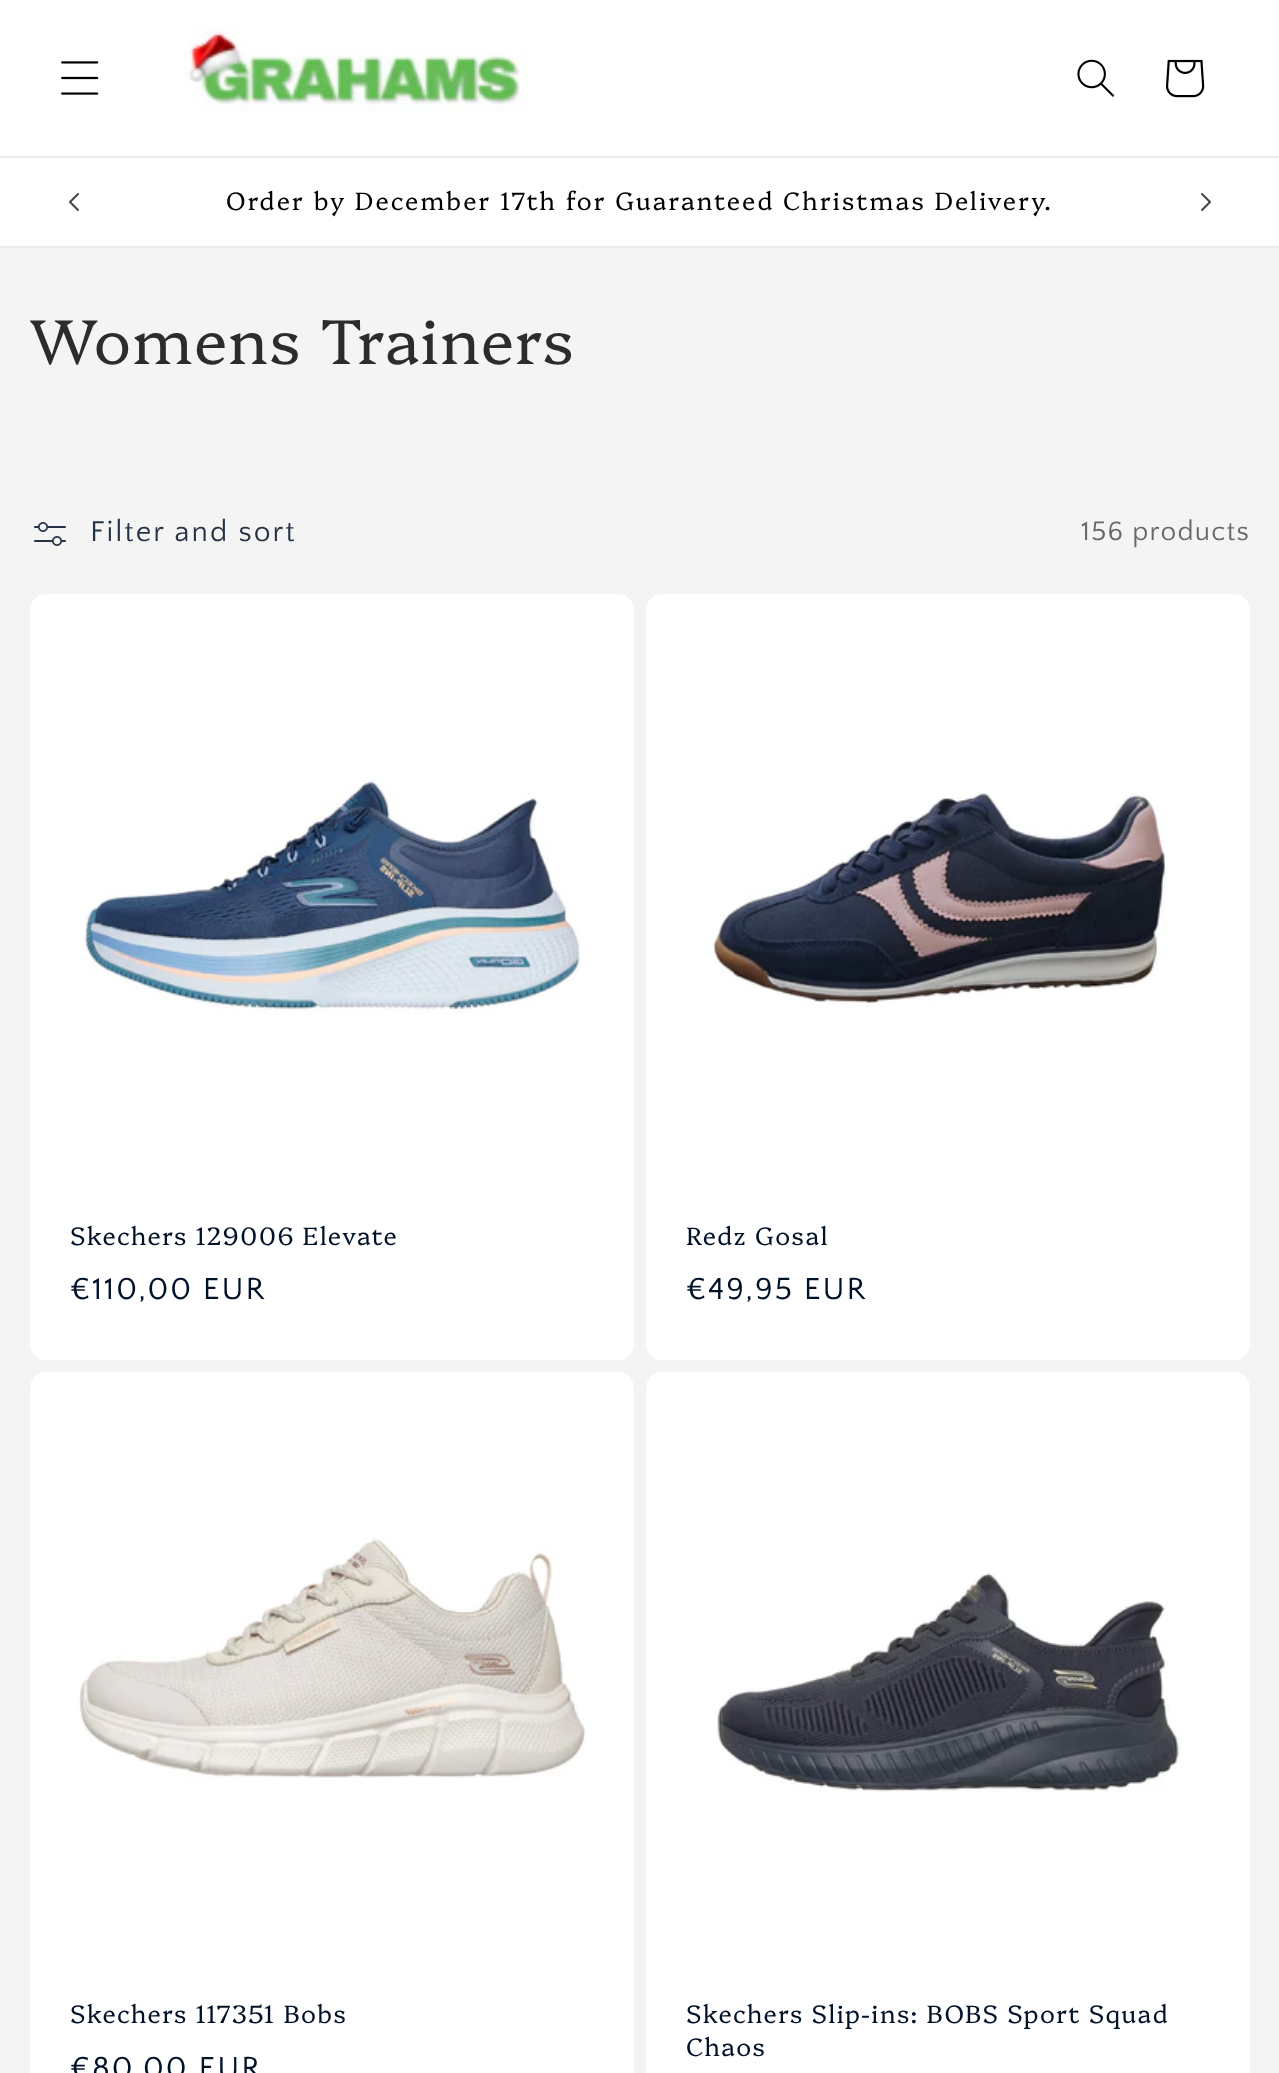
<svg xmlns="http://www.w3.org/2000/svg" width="1279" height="2073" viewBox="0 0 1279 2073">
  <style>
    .t1 { font: 300 25.2px Platypi; letter-spacing: 2px; fill: #000; }
    .t2 { font: 300 63px Platypi; letter-spacing: 1.25px; fill: #2b2c2d; }
    .t3 { font: 30px Quattrocento Sans; letter-spacing: 2px; fill: #253347; }
    .t4 { font: 28px Quattrocento Sans; letter-spacing: 1.25px; fill: #676869; }
    .t5 { font: 300 25.2px Platypi; letter-spacing: 1.25px; fill: #001128; }
    .t6 { font: 32px Quattrocento Sans; letter-spacing: 2px; fill: #001128; }
  </style>
  <rect width="100%" height="100%" fill="#f4f4f4"/>
  <rect x="0" y="0" width="1279" height="156" fill="#fff"/>
  <rect x="0" y="156" width="1279" height="2" fill="#ebebeb"/>
  <image x="61" y="61" width="38" height="34" href="images/1.png"/>
  <image x="185" y="28" width="343" height="84" href="images/2.png"/>
  <image x="1077" y="59" width="37" height="38" href="images/3.png"/>
  <image x="1166" y="59" width="39" height="39" href="images/4.png"/>
  <rect x="0" y="158" width="1279" height="88" fill="#fff"/>
  <rect x="0" y="246" width="1279" height="2" fill="#ebebeb"/>
  <image x="69" y="193" width="10" height="18" href="images/5.png"/>
  <text x="226" y="210" class="t1">Order by December 17th for Guaranteed Christmas Delivery.</text>
  <image x="1201" y="193" width="10" height="18" href="images/6.png"/>
  <text x="30" y="364" class="t2">Womens Trainers</text>
  <image x="34" y="522" width="32" height="24" href="images/7.png"/>
  <text x="90" y="541" class="t3">Filter and sort</text>
  <text x="1081" y="540" class="t4">156 products</text>
  <rect x="30" y="594" width="604" height="766" rx="16" fill="#fff"/>
  <image x="84" y="779" width="498" height="235" href="images/8.png"/>
  <text x="70" y="1245" class="t5">Skechers 129006 Elevate</text>
  <text x="70" y="1299" class="t6">€110,00 EUR</text>
  <rect x="646" y="594" width="604" height="766" rx="16" fill="#fff"/>
  <image x="710" y="791" width="460" height="216" href="images/9.png"/>
  <text x="686" y="1245" class="t5">Redz Gosal</text>
  <text x="686" y="1299" class="t6">€49,95 EUR</text>
  <rect x="30" y="1372" width="604" height="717" rx="16" fill="#fff"/>
  <image x="78" y="1538" width="508" height="241" href="images/10.png"/>
  <text x="70" y="2023" class="t5">Skechers 117351 Bobs</text>
  <text x="70" y="2078" class="t6">€80,00 EUR</text>
  <rect x="646" y="1372" width="604" height="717" rx="16" fill="#fff"/>
  <image x="714" y="1573" width="468" height="219" href="images/11.png"/>
  <text x="686" y="2023" class="t5">Skechers Slip-ins: BOBS Sport Squad</text>
  <text x="686" y="2056" class="t5">Chaos</text>
</svg>
